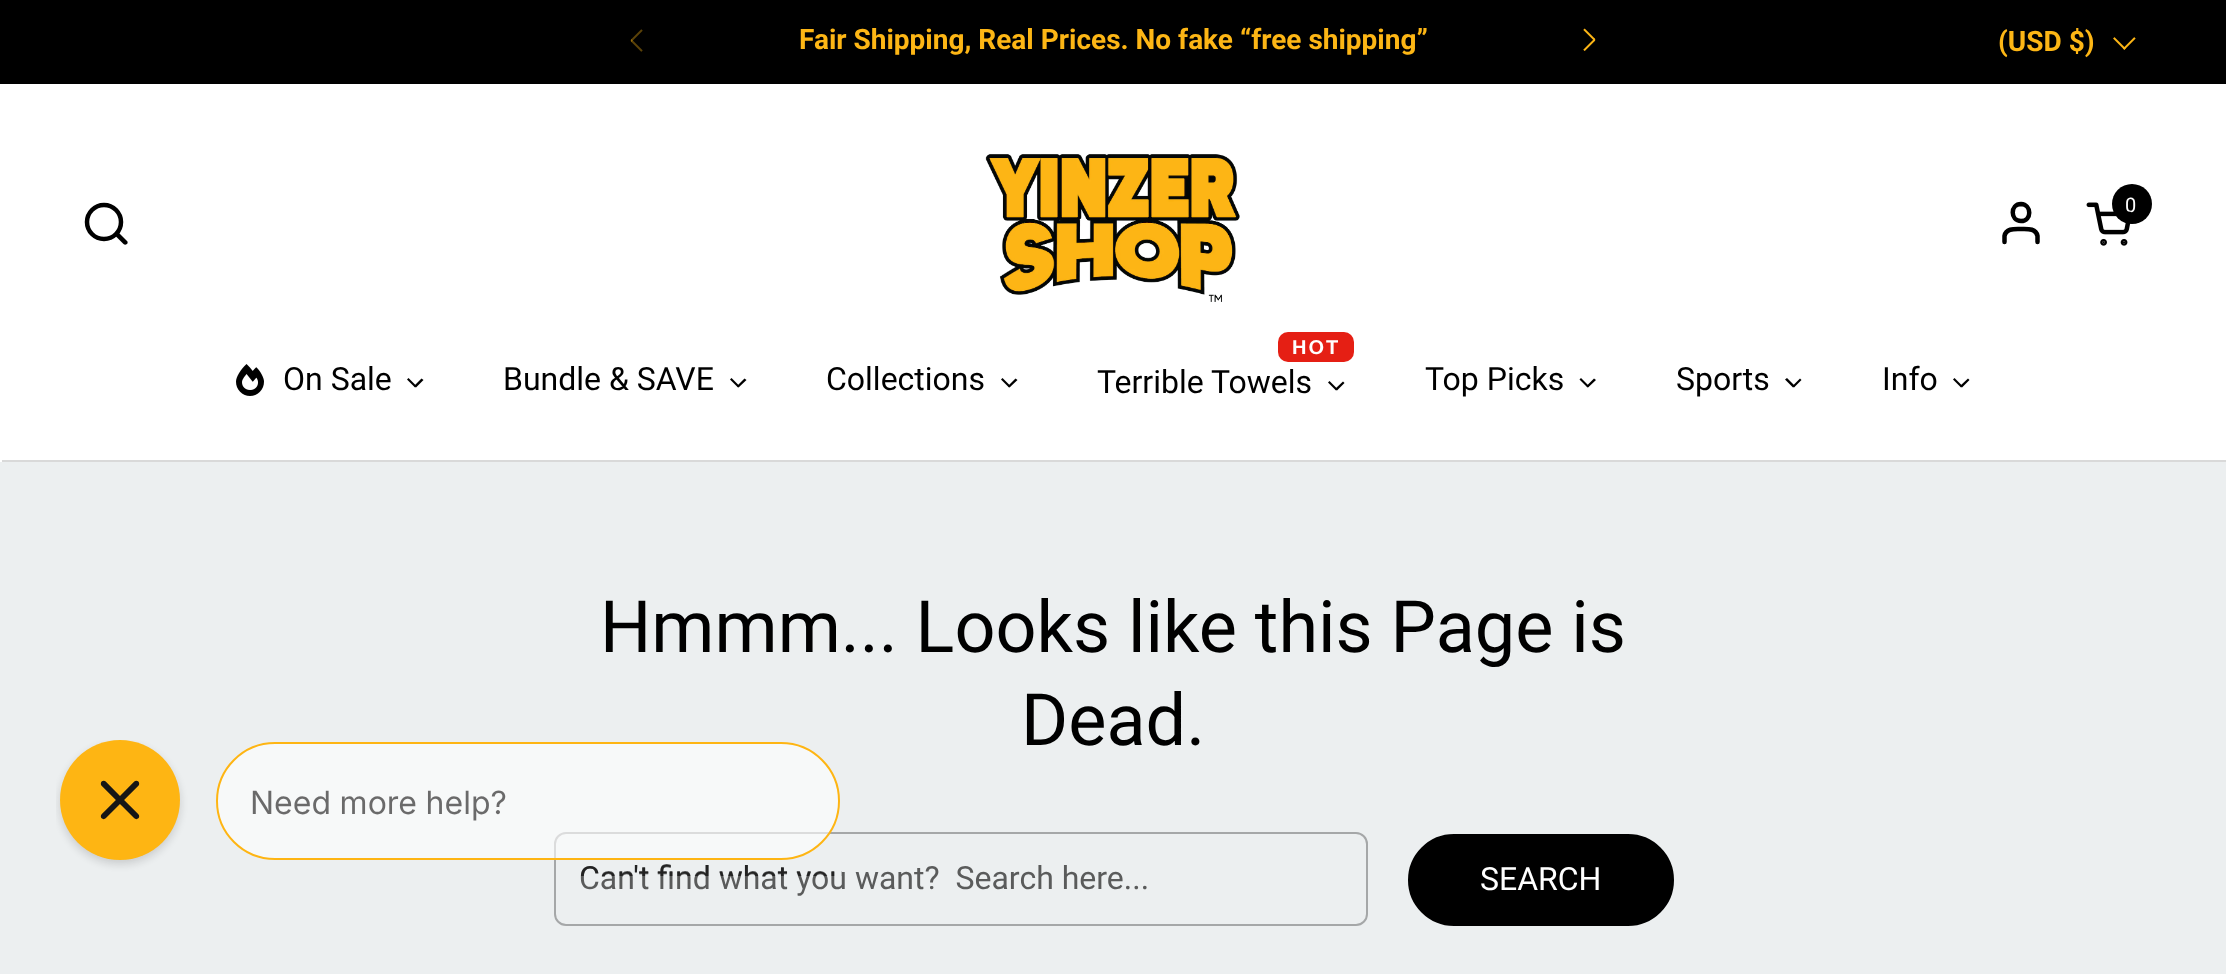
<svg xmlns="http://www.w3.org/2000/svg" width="2226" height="974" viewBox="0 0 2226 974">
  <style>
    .t1 { font: bold 28px Roboto; fill: #fdb615; }
    .t2 { font: 20px Roboto; fill: #fff; }
    .t3 { font: 32px Roboto; fill: #000; }
    .t4 { font: bold 20px Liberation Sans; letter-spacing: 2px; fill: #fff; }
    .t5 { font: 32px Roboto; fill: #5a5b5b; }
    .t6 { font: 72px Roboto; fill: #000; }
    .t7 { font: 32px Roboto; fill: #fff; }
  </style>
  <rect width="100%" height="100%" fill="#eceff0"/>
  <rect x="0" y="0" width="2226" height="84" fill="#000"/>
  <image x="630" y="29" width="13" height="23" href="images/1.png"/>
  <text x="799" y="49" class="t1">Fair Shipping, Real Prices. No fake “free shipping”</text>
  <image x="1583" y="28" width="13" height="23" href="images/2.png"/>
  <text x="1998" y="51" class="t1">(USD $)</text>
  <image x="2113" y="37" width="23" height="13" href="images/3.png"/>
  <rect x="0" y="84" width="2226" height="378" fill="#fff"/>
  <circle cx="104" cy="222" r="17" fill="none" stroke="#000" stroke-width="4.5"/>
  <path d="M119 233L117.5 231L114 234.5L115.5 236ZM123.5 244C126 246 129 243 127 241ZM115.5 236L123.5 244L127 241L119 233Z" fill="#000"/>
  <image x="985" y="154" width="255" height="148" href="images/4.png"/>
  <path d="M2037.5 242V236C2036 228 2027 229 2021 229C2015 229 2006 228 2004.5 236V242M2021 221C2032 221 2032 204.5 2021 204C2010 204 2010 221 2021 221Z" fill="none" stroke="#000" stroke-width="4.5" stroke-linecap="round" stroke-linejoin="round"/>
  <circle cx="2132" cy="204" r="20" fill="#000"/>
  <text x="2125" y="212" class="t2">0</text>
  <image x="2086" y="202" width="46" height="44" href="images/5.png"/>
  <image x="236" y="364" width="28" height="32" href="images/6.png"/>
  <text x="283" y="390" class="t3">On Sale</text>
  <path d="M421.5 378.5L423.5 380L416 387.5L414 386Z" fill="#000"/>
  <path d="M408.5 378L416.5 386L415 387.5L407 379.5Z" fill="#000"/>
  <text x="503" y="390" class="t3">Bundle &amp; SAVE</text>
  <path d="M744.5 378.5L746.5 380L738.5 387.5L737 386Z" fill="#000"/>
  <path d="M731.5 378L739.5 386L738 387.5L730 379.5Z" fill="#000"/>
  <text x="826" y="390" class="t3">Collections</text>
  <path d="M1015.5 378.5L1017.5 380L1009.5 387.5L1008 386Z" fill="#000"/>
  <path d="M1002.5 378L1010.5 386L1009 387.5L1001 379.5Z" fill="#000"/>
  <rect x="1278" y="332" width="76" height="30" rx="10" fill="#e51f14"/>
  <text x="1292" y="354" class="t4">HOT</text>
  <text x="1097" y="393" class="t3">Terrible Towels</text>
  <path d="M1343 381.5L1344.5 383L1337 390.5L1335 389Z" fill="#000"/>
  <path d="M1329.5 381L1337.5 389L1336 390.5L1328 382.5Z" fill="#000"/>
  <text x="1425" y="390" class="t3">Top Picks</text>
  <path d="M1594 378.5L1596 380L1588 387.5L1586.5 386Z" fill="#000"/>
  <path d="M1581 378L1589 386L1587.5 387.5L1579.5 379.5Z" fill="#000"/>
  <text x="1676" y="390" class="t3">Sports</text>
  <path d="M1800 378.5L1801.5 380L1794 387.5L1792.5 386Z" fill="#000"/>
  <path d="M1787 378L1795 386L1793 387.5L1785 379.5Z" fill="#000"/>
  <text x="1882" y="390" class="t3">Info</text>
  <path d="M1968 378.5L1969.5 380L1962 387.5L1960 386Z" fill="#000"/>
  <path d="M1954.5 378L1962.5 386L1961 387.5L1953 379.5Z" fill="#000"/>
  <rect x="2" y="460" width="2224" height="2" fill="#d9d9d9"/>
  <rect x="555" y="833" width="812" height="92" rx="11" fill="none" stroke="#a5a7a8" stroke-width="2"/>
  <text x="579" y="889" class="t5" xml:space="preserve">Can't find what you want?  Search here...</text>
  <image x="56" y="740" width="786" height="136" href="images/7.png"/>
  <text x="600" y="652" class="t6">Hmmm... Looks like this Page is</text>
  <text x="1021" y="745" class="t6">Dead.</text>
  <rect x="1409" y="835" width="264" height="90" rx="45" fill="#000" stroke="#000" stroke-width="2"/>
  <text x="1480" y="890" class="t7">SEARCH</text>
</svg>
